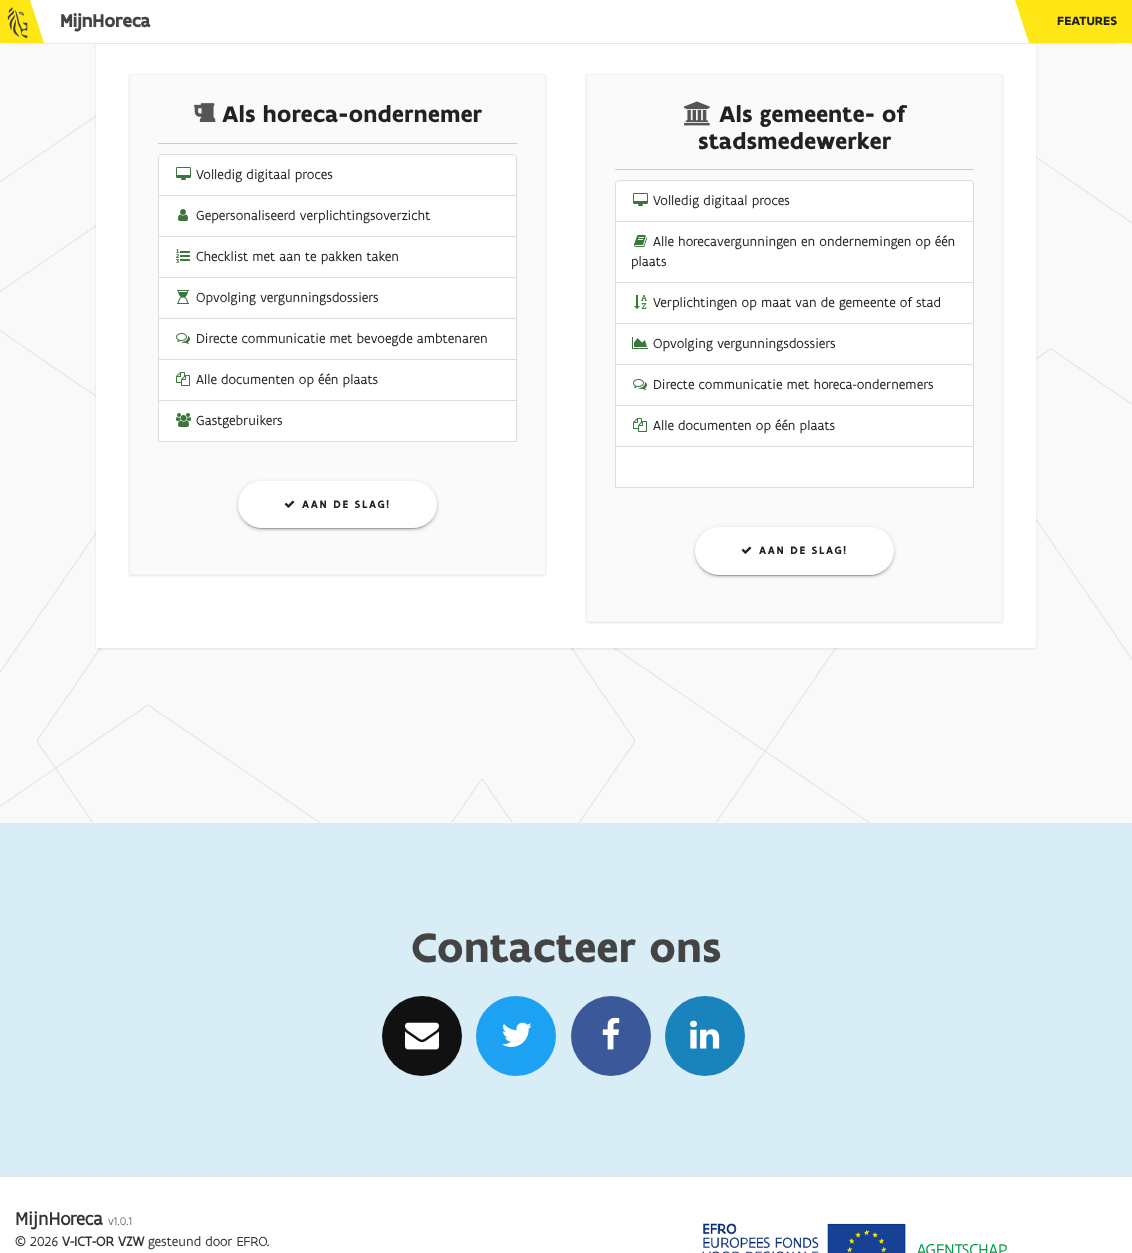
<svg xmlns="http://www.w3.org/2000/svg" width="1132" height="1253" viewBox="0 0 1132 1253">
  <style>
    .t1 { font: bold 19px 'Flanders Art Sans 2'; fill: #444; }
    .t2 { font: bold 13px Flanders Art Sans; fill: #222; }
    .t3 { font: bold 24px Flanders Art Sans; fill: #222; }
    .t4 { font: 14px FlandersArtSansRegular; fill: #222; }
    .t5 { font: bold 11px 'Flanders Art Sans 2'; letter-spacing: 2px; fill: #222; }
    .t6 { font: bold 44px Flanders Art Sans; fill: #444; }
    .t7 { font: bold 19px FlandersArtSansRegular; fill: #333; }
    .t8 { font: 12px FlandersArtSansRegular; fill: #777; }
    .t9 { font: 14px FlandersArtSansRegular; fill: #333; }
    .t10 { font: bold 14px FlandersArtSansRegular; fill: #333; }
  </style>
  <rect width="100%" height="100%" fill="#f9f9f9"/>
  <image x="0" y="43" width="1132" height="780" href="images/1.png"/>
  <rect x="0" y="0" width="44" height="43" fill="#ffe615"/>
  <image x="7" y="7" width="21" height="31" href="images/2.png"/>
  <path d="M30 0H44V43Z" fill="#fff"/>
  <rect x="96" y="-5" width="940" height="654" rx="2" fill="#0000001a" filter="blur(1px)"/>
  <rect x="44" y="0" width="52" height="43" fill="#fff"/>
  <path d="M96-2H1036V646C1036 647 1035 648 1034 648H98C97 648 96 647 96 646Z" fill="#fff"/>
  <text x="60" y="27" class="t1">MijnHoreca</text>
  <rect x="15" y="43" width="1102" height="1" fill="#e7e7e7"/>
  <rect x="1015" y="0" width="117" height="43" fill="#ffe615"/>
  <path d="M1029 43H1015V0Z" fill="#fff"/>
  <text x="1057" y="25" class="t2">FEATURES</text>
  <rect x="129" y="75" width="417" height="501" rx="2" fill="#0000001a" filter="blur(1px)"/>
  <path d="M129.5 74.5H545.5V573C545.5 574 545 574.5 544 574.5H131C130 574.5 129.5 574 129.5 573Z" fill="#fafafa" stroke="#f1f1f1"/>
  <rect x="158" y="143" width="359" height="1" fill="#cdcdcd"/>
  <image x="193" y="103" width="23" height="19" href="images/3.png"/>
  <text x="222" y="122" class="t3">Als horeca-ondernemer</text>
  <path d="M162 154.5H513C515 154.5 516.5 156 516.5 158V195.5H158.5V158C158.5 156 160 154.5 162 154.5Z" fill="#fff" stroke="#ddd"/>
  <image x="176" y="167" width="15" height="13" href="images/4.png"/>
  <text x="196" y="179" class="t4">Volledig digitaal proces</text>
  <rect x="158.5" y="195.5" width="358" height="41" fill="#fff" stroke="#ddd"/>
  <image x="178" y="209" width="10" height="12" href="images/5.png"/>
  <text x="196" y="220" class="t4">Gepersonaliseerd verplichtingsoverzicht</text>
  <rect x="158.5" y="236.5" width="358" height="41" fill="#fff" stroke="#ddd"/>
  <image x="176" y="249" width="14" height="14" href="images/6.png"/>
  <text x="196" y="261" class="t4">Checklist met aan te pakken taken</text>
  <rect x="158.5" y="277.5" width="358" height="41" fill="#fff" stroke="#ddd"/>
  <image x="177" y="290" width="12" height="14" href="images/7.png"/>
  <text x="196" y="302" class="t4">Opvolging vergunningsdossiers</text>
  <rect x="158.5" y="318.5" width="358" height="41" fill="#fff" stroke="#ddd"/>
  <image x="176" y="333" width="14" height="11" href="images/8.png"/>
  <text x="196" y="343" class="t4">Directe communicatie met bevoegde ambtenaren</text>
  <rect x="158.5" y="359.5" width="358" height="41" fill="#fff" stroke="#ddd"/>
  <image x="176" y="372" width="14" height="14" href="images/9.png"/>
  <text x="196" y="384" class="t4">Alle documenten op één plaats</text>
  <rect x="158.5" y="400.5" width="358" height="41" fill="#fff" stroke="#ddd"/>
  <image x="176" y="413" width="15" height="14" href="images/10.png"/>
  <text x="196" y="425" class="t4">Gastgebruikers</text>
  <rect x="238" y="482" width="199" height="47" rx="23.5" fill="#0000001f" filter="blur(2.5px)"/>
  <rect x="240" y="486" width="195" height="43" rx="21.5" fill="#00000033" filter="blur(0.5px)"/>
  <rect x="238" y="483" width="199" height="47" rx="23.5" fill="#00000024" filter="blur(1px)"/>
  <rect x="238.5" y="481.5" width="198" height="46" rx="23" fill="#fff" stroke="#fff"/>
  <image x="284" y="500" width="11" height="8" href="images/11.png"/>
  <text x="302" y="508" class="t5">AAN DE SLAG!</text>
  <rect x="586" y="75" width="417" height="548" rx="2" fill="#0000001a" filter="blur(1px)"/>
  <path d="M586.5 74.5H1002.5V620C1002.5 621 1002 621.5 1001 621.5H588C587 621.5 586.5 621 586.5 620Z" fill="#fafafa" stroke="#f1f1f1"/>
  <rect x="615" y="169" width="359" height="1" fill="#cdcdcd"/>
  <image x="684" y="101" width="26" height="25" href="images/12.png"/>
  <text x="719" y="122" class="t3">Als gemeente- of</text>
  <text x="698" y="149" class="t3">stadsmedewerker</text>
  <path d="M619 180.5H970C972 180.5 973.5 182 973.5 184V221.5H615.5V184C615.5 182 617 180.5 619 180.5Z" fill="#fff" stroke="#ddd"/>
  <image x="633" y="193" width="15" height="13" href="images/4.png"/>
  <text x="653" y="205" class="t4">Volledig digitaal proces</text>
  <rect x="615.5" y="221.5" width="358" height="61" fill="#fff" stroke="#ddd"/>
  <image x="634" y="235" width="13" height="12" href="images/13.png"/>
  <text x="653" y="246" class="t4">Alle horecavergunningen en ondernemingen op één</text>
  <text x="631" y="266" class="t4">plaats</text>
  <rect x="615.5" y="282.5" width="358" height="41" fill="#fff" stroke="#ddd"/>
  <image x="634" y="295" width="13" height="14" href="images/14.png"/>
  <text x="653" y="307" class="t4">Verplichtingen op maat van de gemeente of stad</text>
  <rect x="615.5" y="323.5" width="358" height="41" fill="#fff" stroke="#ddd"/>
  <image x="632" y="337" width="16" height="12" href="images/15.png"/>
  <text x="653" y="348" class="t4">Opvolging vergunningsdossiers</text>
  <rect x="615.5" y="364.5" width="358" height="41" fill="#fff" stroke="#ddd"/>
  <image x="633" y="379" width="14" height="11" href="images/8.png"/>
  <text x="653" y="389" class="t4">Directe communicatie met horeca-ondernemers</text>
  <rect x="615.5" y="405.5" width="358" height="41" fill="#fff" stroke="#ddd"/>
  <image x="633" y="418" width="14" height="14" href="images/9.png"/>
  <text x="653" y="430" class="t4">Alle documenten op één plaats</text>
  <rect x="615.5" y="446.5" width="358" height="41" fill="#fff" stroke="#ddd"/>
  <rect x="695" y="528" width="199" height="48" rx="24" fill="#0000001f" filter="blur(2.5px)"/>
  <rect x="697" y="532" width="195" height="44" rx="22" fill="#00000033" filter="blur(0.5px)"/>
  <rect x="695" y="529" width="199" height="48" rx="24" fill="#00000024" filter="blur(1px)"/>
  <rect x="695.5" y="527.5" width="198" height="47" rx="23.5" fill="#fff" stroke="#fff"/>
  <image x="741" y="546" width="11" height="8" href="images/11.png"/>
  <text x="759" y="554" class="t5">AAN DE SLAG!</text>
  <rect x="0" y="823" width="1132" height="353" fill="#d9edf7"/>
  <text x="411" y="962" class="t6">Contacteer ons</text>
  <circle cx="422" cy="1036" r="40" fill="#111"/>
  <image x="405" y="1022" width="34" height="28" href="images/16.png"/>
  <circle cx="516" cy="1036" r="40" fill="#1da1f2"/>
  <image x="502" y="1022" width="30" height="25" href="images/17.png"/>
  <circle cx="611" cy="1036" r="40" fill="#3b5998"/>
  <image x="602" y="1017" width="18" height="33" href="images/18.png"/>
  <circle cx="705" cy="1036" r="40" fill="#1984bb"/>
  <image x="690" y="1020" width="30" height="29" href="images/19.png"/>
  <rect x="0" y="1177" width="1132" height="76" fill="#fff"/>
  <rect x="0" y="1176" width="1132" height="1" fill="#e5e5e5"/>
  <text x="15" y="1225" class="t7">MijnHoreca</text>
  <text x="108" y="1225" class="t8">v1.0.1</text>
  <text x="15" y="1246" class="t9">© 2026</text>
  <text x="62" y="1246" class="t10">V-ICT-OR VZW</text>
  <text x="148" y="1246" class="t9">gesteund door EFRO.</text>
  <image x="702" y="1223" width="204" height="30" href="images/20.png"/>
  <image x="917" y="1244" width="90" height="9" href="images/21.png"/>
</svg>
